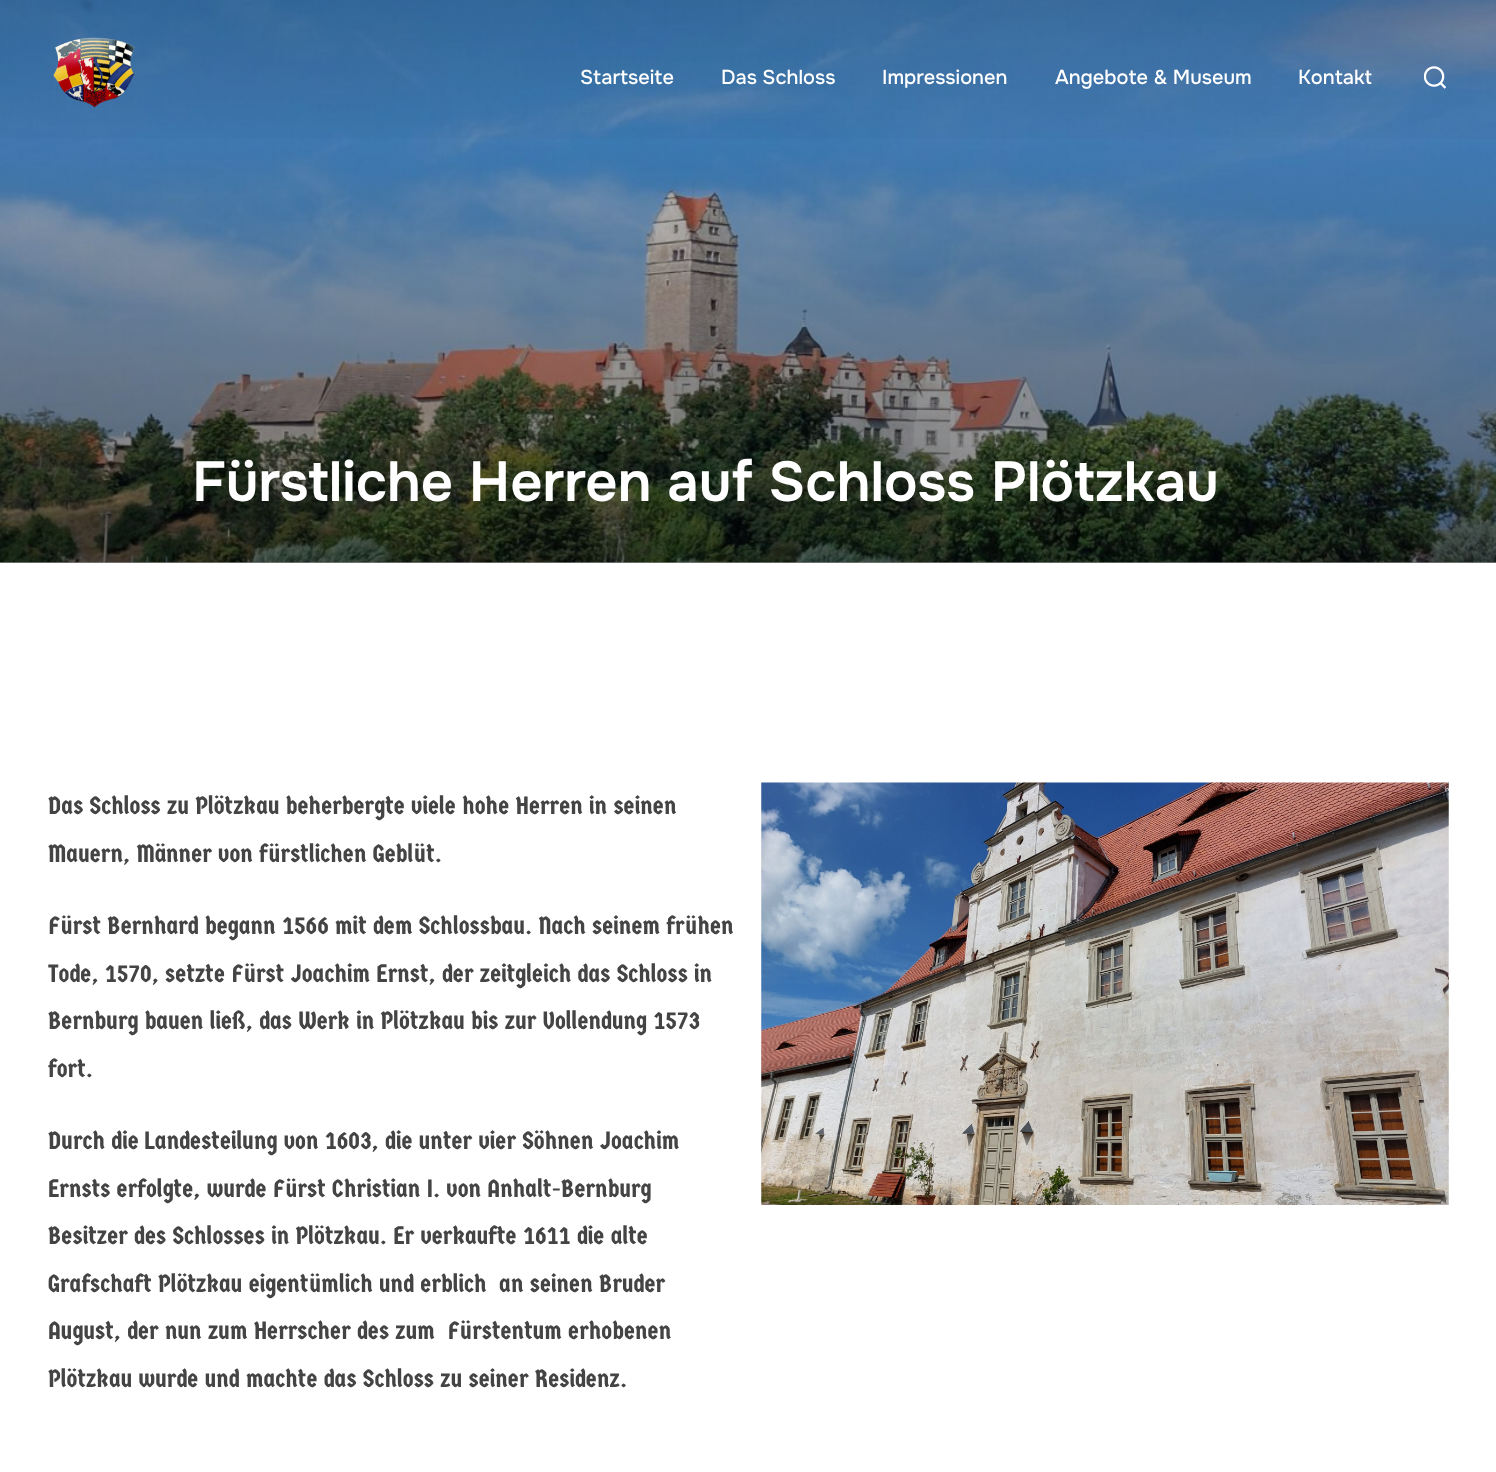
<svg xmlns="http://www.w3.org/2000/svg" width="1496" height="1472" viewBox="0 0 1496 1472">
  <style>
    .t1 { font: 500 20px Onest; fill: #fff; }
    .t2 { font: 600 56.25px Onest; fill: #fff; }
    .t3 { font: 25px Germania One; fill: #444; }
  </style>
  <defs>
    <linearGradient id="g1" gradientUnits="userSpaceOnUse" x1="748" y1="0" x2="748" y2="563"><stop offset="0" stop-color="#000" stop-opacity="0.1"/><stop offset="1" stop-color="#000" stop-opacity="0.5"/></linearGradient>
    <linearGradient id="g2" gradientUnits="userSpaceOnUse" x1="748" y1="0" x2="748" y2="156"><stop offset="0.01" stop-color="#000" stop-opacity="0.2"/><stop offset="1" stop-color="#000" stop-opacity="0"/></linearGradient>
  </defs>
  <rect width="100%" height="100%" fill="#fff"/>
  <image x="0" y="0" width="1496" height="563" href="images/3.png"/>
  <rect x="0" y="0" width="1496" height="563" fill="url(#g1)"/>
  <rect x="0" y="0" width="1496" height="139" fill="url(#g2)"/>
  <image x="53" y="37" width="82" height="71" href="images/1.png"/>
  <text x="580" y="84" class="t1">Startseite</text>
  <text x="721" y="84" class="t1">Das Schloss</text>
  <text x="882" y="84" class="t1">Impressionen</text>
  <text x="1055" y="84" class="t1">Angebote &amp; Museum</text>
  <text x="1298" y="84" class="t1">Kontakt</text>
  <image x="1424" y="66" width="22" height="23" href="images/2.png"/>
  <text x="192" y="501" class="t2">Fürstliche Herren auf Schloss Plötzkau</text>
  <text x="48" y="814" class="t3">Das Schloss zu Plötzkau beherbergte viele hohe Herren in seinen</text>
  <text x="48" y="862" class="t3">Mauern, Männer von fürstlichen Geblüt.</text>
  <text x="48" y="934" class="t3">Fürst Bernhard begann 1566 mit dem Schlossbau. Nach seinem frühen</text>
  <text x="48" y="982" class="t3">Tode, 1570, setzte Fürst Joachim Ernst, der zeitgleich das Schloss in</text>
  <text x="48" y="1029" class="t3">Bernburg bauen ließ, das Werk in Plötzkau bis zur Vollendung 1573</text>
  <text x="48" y="1077" class="t3">fort.</text>
  <text x="48" y="1149" class="t3">Durch die Landesteilung von 1603, die unter vier Söhnen Joachim</text>
  <text x="48" y="1197" class="t3">Ernsts erfolgte, wurde Fürst Christian I. von Anhalt-Bernburg</text>
  <text x="48" y="1244" class="t3">Besitzer des Schlosses in Plötzkau. Er verkaufte 1611 die alte</text>
  <text x="48" y="1292" class="t3" xml:space="preserve">Grafschaft Plötzkau eigentümlich und erblich  an seinen Bruder</text>
  <text x="48" y="1339" class="t3" xml:space="preserve">August, der nun zum Herrscher des zum  Fürstentum erhobenen</text>
  <text x="48" y="1387" class="t3">Plötzkau wurde und machte das Schloss zu seiner Residenz.</text>
  <image x="761" y="782" width="688" height="423" href="images/4.png"/>
</svg>
